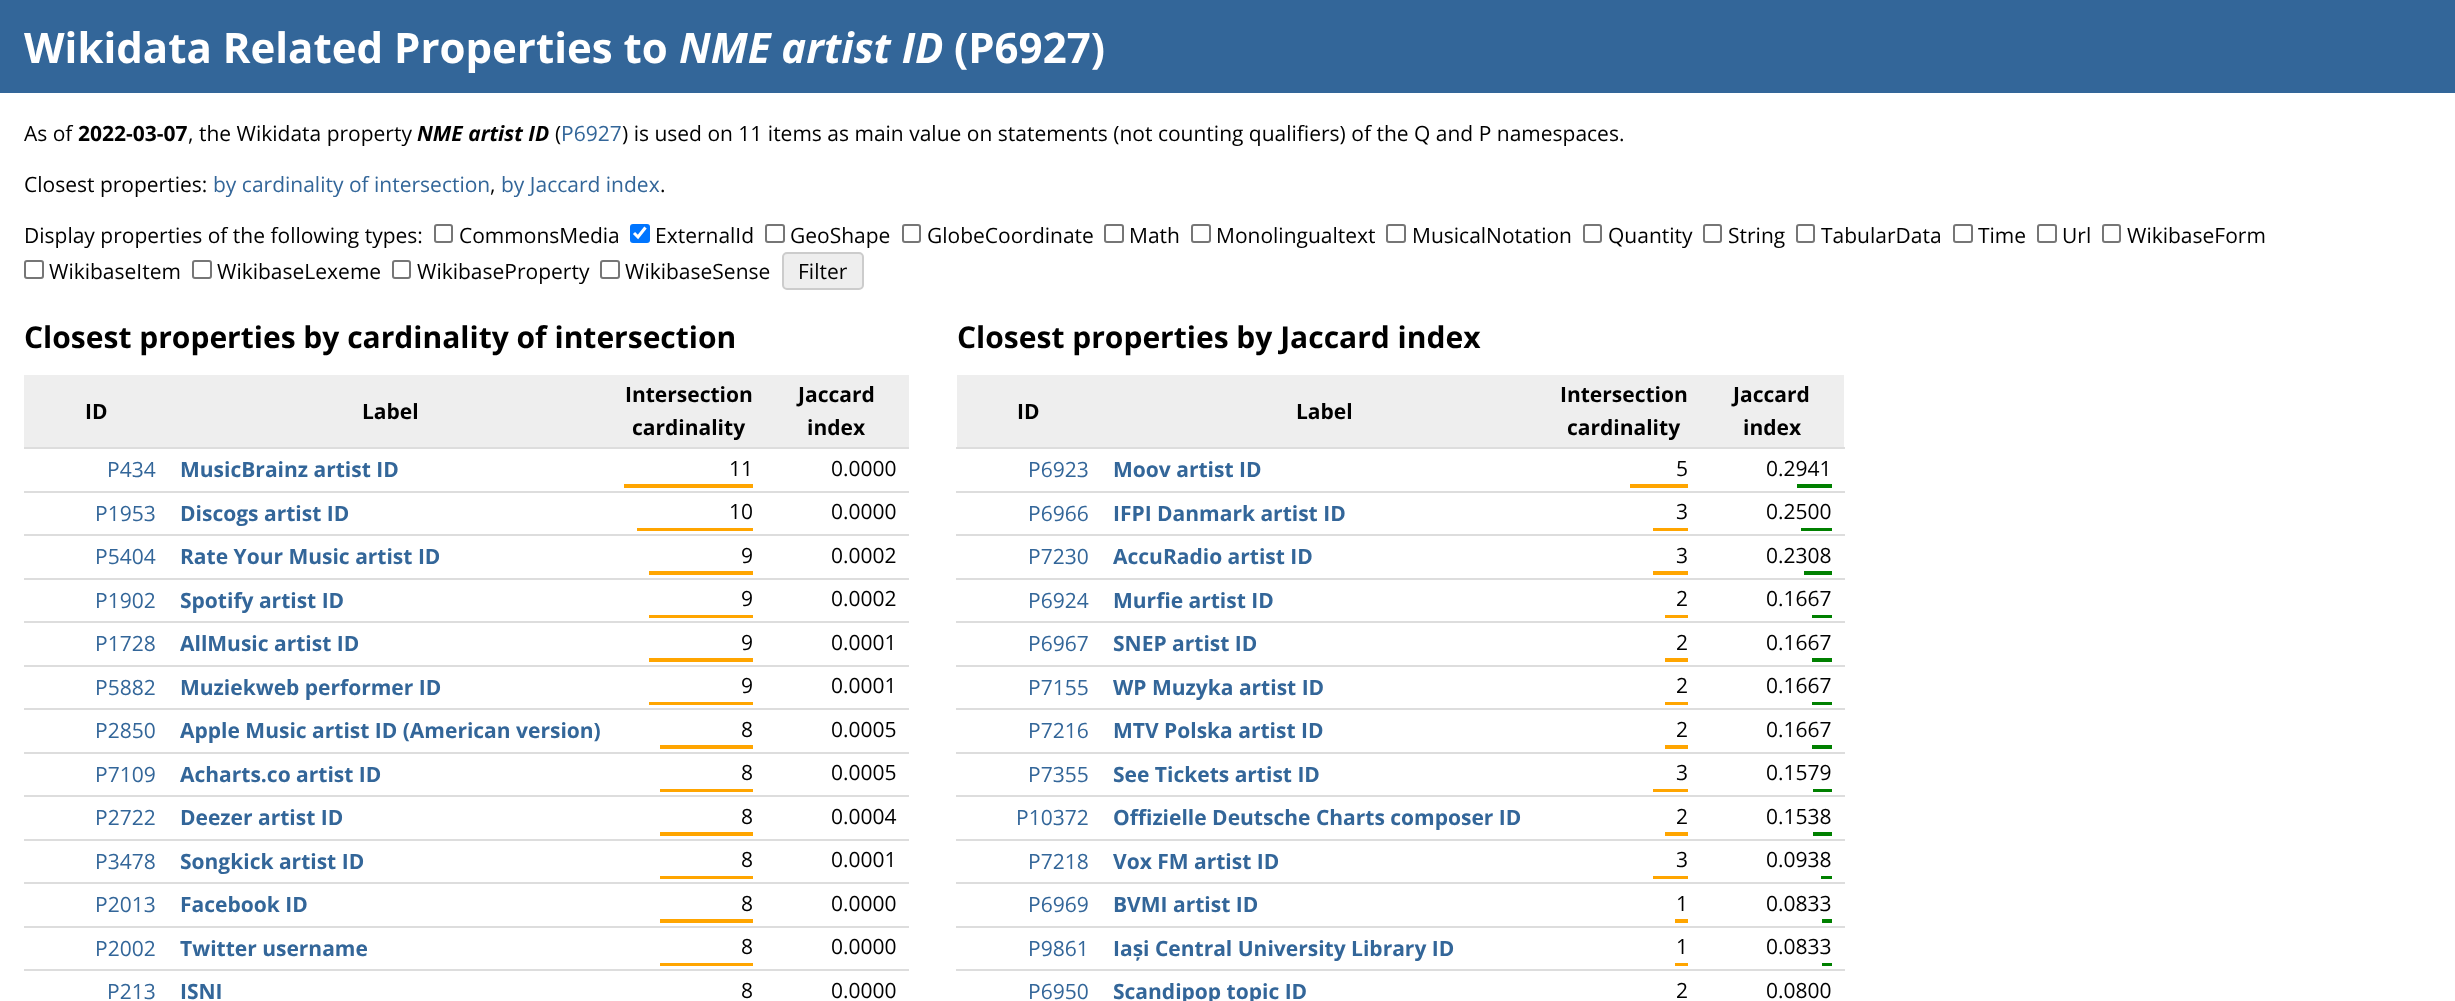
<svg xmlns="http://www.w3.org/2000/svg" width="2455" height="1001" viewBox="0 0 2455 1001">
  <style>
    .t1 { font: bold 42px Open Sans; fill: #fff; }
    .t2 { font: italic bold 42px Open Sans; fill: #fff; }
    .t3 { font: 21px Open Sans; fill: #000; }
    .t4 { font: bold 21px Open Sans; fill: #000; }
    .t5 { font: italic bold 21px Open Sans; fill: #000; }
    .t6 { font: 21px Open Sans; fill: #369; }
    .t7 { font: bold 30px Open Sans; fill: #000; }
    .t8 { font: bold 21px Open Sans; fill: #369; }
  </style>
  <rect width="100%" height="100%" fill="#fff"/>
  <rect x="0" y="0" width="2455" height="93" fill="#369"/>
  <text x="24" y="63" class="t1">Wikidata Related Properties to</text>
  <text x="679" y="63" class="t2">NME artist ID</text>
  <text x="954" y="63" class="t1">(P6927)</text>
  <text x="24" y="141" class="t3">As of</text>
  <text x="78" y="141" class="t4">2022-03-07</text>
  <text x="188" y="141" class="t3">, the Wikidata property</text>
  <text x="417" y="141" class="t5">NME artist ID</text>
  <text x="555" y="141" class="t3">(</text>
  <text x="561" y="141" class="t6">P6927</text>
  <text x="622" y="141" class="t3">) is used on 11 items as main value on statements (not counting qualifiers) of the Q and P namespaces.</text>
  <text x="24" y="192" class="t3">Closest properties:</text>
  <text x="213" y="192" class="t6">by cardinality of intersection</text>
  <text x="490" y="192" class="t3">,</text>
  <text x="501" y="192" class="t6">by Jaccard index</text>
  <text x="660" y="192" class="t3">.</text>
  <text x="24" y="243" class="t3">Display properties of the following types:</text>
  <rect x="435" y="225" width="17" height="17" rx="2" fill="none" stroke="#767676" stroke-width="2"/>
  <text x="459" y="243" class="t3">CommonsMedia</text>
  <rect x="630" y="224" width="20" height="19" rx="3" fill="#0075ff"/>
  <path d="M634 233L638 237L645.5 227.5" fill="none" stroke="#fff" stroke-width="3.1"/>
  <text x="655" y="243" class="t3">ExternalId</text>
  <rect x="766" y="225" width="18" height="17" rx="2" fill="none" stroke="#767676" stroke-width="2"/>
  <text x="790" y="243" class="t3">GeoShape</text>
  <rect x="903" y="225" width="17" height="17" rx="2" fill="none" stroke="#767676" stroke-width="2"/>
  <text x="927" y="243" class="t3">GlobeCoordinate</text>
  <rect x="1105" y="225" width="18" height="17" rx="2" fill="none" stroke="#767676" stroke-width="2"/>
  <text x="1129" y="243" class="t3">Math</text>
  <rect x="1192" y="225" width="18" height="17" rx="2" fill="none" stroke="#767676" stroke-width="2"/>
  <text x="1216" y="243" class="t3">Monolingualtext</text>
  <rect x="1387" y="225" width="18" height="17" rx="2" fill="none" stroke="#767676" stroke-width="2"/>
  <text x="1412" y="243" class="t3">MusicalNotation</text>
  <rect x="1584" y="225" width="17" height="17" rx="2" fill="none" stroke="#767676" stroke-width="2"/>
  <text x="1608" y="243" class="t3">Quantity</text>
  <rect x="1704" y="225" width="17" height="17" rx="2" fill="none" stroke="#767676" stroke-width="2"/>
  <text x="1728" y="243" class="t3">String</text>
  <rect x="1797" y="225" width="17" height="17" rx="2" fill="none" stroke="#767676" stroke-width="2"/>
  <text x="1821" y="243" class="t3">TabularData</text>
  <rect x="1954" y="225" width="18" height="17" rx="2" fill="none" stroke="#767676" stroke-width="2"/>
  <text x="1978" y="243" class="t3">Time</text>
  <rect x="2038" y="225" width="18" height="17" rx="2" fill="none" stroke="#767676" stroke-width="2"/>
  <text x="2062" y="243" class="t3">Url</text>
  <rect x="2103" y="225" width="17" height="17" rx="2" fill="none" stroke="#767676" stroke-width="2"/>
  <text x="2127" y="243" class="t3">WikibaseForm</text>
  <rect x="25" y="261" width="18" height="17" rx="2" fill="none" stroke="#767676" stroke-width="2"/>
  <text x="49" y="279" class="t3">WikibaseItem</text>
  <rect x="193" y="261" width="18" height="17" rx="2" fill="none" stroke="#767676" stroke-width="2"/>
  <text x="217" y="279" class="t3">WikibaseLexeme</text>
  <rect x="393" y="261" width="17" height="17" rx="2" fill="none" stroke="#767676" stroke-width="2"/>
  <text x="417" y="279" class="t3">WikibaseProperty</text>
  <rect x="601" y="261" width="18" height="17" rx="2" fill="none" stroke="#767676" stroke-width="2"/>
  <text x="625" y="279" class="t3">WikibaseSense</text>
  <rect x="783" y="253" width="80" height="36" rx="4" fill="#eee" stroke="#ccc" stroke-width="2"/>
  <text x="798" y="279" class="t3">Filter</text>
  <text x="24" y="348" class="t7">Closest properties by cardinality of intersection</text>
  <rect x="24" y="375" width="885" height="72" fill="#eee"/>
  <text x="85" y="419" class="t4">ID</text>
  <text x="362" y="419" class="t4">Label</text>
  <text x="625" y="402" class="t4">Intersection</text>
  <text x="632" y="435" class="t4">cardinality</text>
  <text x="798" y="402" class="t4">Jaccard</text>
  <text x="807" y="435" class="t4">index</text>
  <text x="107" y="477" class="t6">P434</text>
  <text x="180" y="477" class="t8">MusicBrainz artist ID</text>
  <text x="729" y="476" class="t3">11</text>
  <rect x="624" y="484" width="129" height="4" fill="#ffa500"/>
  <rect x="24" y="447" width="885" height="2" fill="#ddd"/>
  <text x="831" y="476" class="t3">0.0000</text>
  <text x="95" y="521" class="t6">P1953</text>
  <text x="180" y="521" class="t8">Discogs artist ID</text>
  <text x="729" y="519" class="t3">10</text>
  <rect x="637" y="528" width="116" height="3" fill="#ffa500"/>
  <rect x="24" y="491" width="885" height="2" fill="#ddd"/>
  <text x="831" y="519" class="t3">0.0000</text>
  <text x="95" y="564" class="t6">P5404</text>
  <text x="180" y="564" class="t8">Rate Your Music artist ID</text>
  <text x="741" y="563" class="t3">9</text>
  <rect x="649" y="571" width="104" height="4" fill="#ffa500"/>
  <rect x="24" y="534" width="885" height="2" fill="#ddd"/>
  <text x="831" y="563" class="t3">0.0002</text>
  <text x="95" y="608" class="t6">P1902</text>
  <text x="180" y="608" class="t8">Spotify artist ID</text>
  <text x="741" y="606" class="t3">9</text>
  <rect x="649" y="615" width="104" height="3" fill="#ffa500"/>
  <rect x="24" y="578" width="885" height="2" fill="#ddd"/>
  <text x="831" y="606" class="t3">0.0002</text>
  <text x="95" y="651" class="t6">P1728</text>
  <text x="180" y="651" class="t8">AllMusic artist ID</text>
  <text x="741" y="650" class="t3">9</text>
  <rect x="649" y="658" width="104" height="4" fill="#ffa500"/>
  <rect x="24" y="621" width="885" height="2" fill="#ddd"/>
  <text x="831" y="650" class="t3">0.0001</text>
  <text x="95" y="695" class="t6">P5882</text>
  <text x="180" y="695" class="t8">Muziekweb performer ID</text>
  <text x="741" y="693" class="t3">9</text>
  <rect x="649" y="702" width="104" height="3" fill="#ffa500"/>
  <rect x="24" y="665" width="885" height="2" fill="#ddd"/>
  <text x="831" y="693" class="t3">0.0001</text>
  <text x="95" y="738" class="t6">P2850</text>
  <text x="180" y="738" class="t8">Apple Music artist ID (American version)</text>
  <text x="741" y="737" class="t3">8</text>
  <rect x="660" y="745" width="93" height="4" fill="#ffa500"/>
  <rect x="24" y="708" width="885" height="2" fill="#ddd"/>
  <text x="831" y="737" class="t3">0.0005</text>
  <text x="95" y="782" class="t6">P7109</text>
  <text x="180" y="782" class="t8">Acharts.co artist ID</text>
  <text x="741" y="780" class="t3">8</text>
  <rect x="660" y="789" width="93" height="3" fill="#ffa500"/>
  <rect x="24" y="752" width="885" height="2" fill="#ddd"/>
  <text x="831" y="780" class="t3">0.0005</text>
  <text x="95" y="825" class="t6">P2722</text>
  <text x="180" y="825" class="t8">Deezer artist ID</text>
  <text x="741" y="824" class="t3">8</text>
  <rect x="660" y="832" width="93" height="4" fill="#ffa500"/>
  <rect x="24" y="795" width="885" height="2" fill="#ddd"/>
  <text x="831" y="824" class="t3">0.0004</text>
  <text x="95" y="869" class="t6">P3478</text>
  <text x="180" y="869" class="t8">Songkick artist ID</text>
  <text x="741" y="867" class="t3">8</text>
  <rect x="660" y="876" width="93" height="3" fill="#ffa500"/>
  <rect x="24" y="839" width="885" height="2" fill="#ddd"/>
  <text x="831" y="867" class="t3">0.0001</text>
  <text x="95" y="912" class="t6">P2013</text>
  <text x="180" y="912" class="t8">Facebook ID</text>
  <text x="741" y="911" class="t3">8</text>
  <rect x="660" y="919" width="93" height="4" fill="#ffa500"/>
  <rect x="24" y="882" width="885" height="2" fill="#ddd"/>
  <text x="831" y="911" class="t3">0.0000</text>
  <text x="95" y="956" class="t6">P2002</text>
  <text x="180" y="956" class="t8">Twitter username</text>
  <text x="741" y="954" class="t3">8</text>
  <rect x="660" y="963" width="93" height="3" fill="#ffa500"/>
  <rect x="24" y="926" width="885" height="2" fill="#ddd"/>
  <text x="831" y="954" class="t3">0.0000</text>
  <text x="107" y="999" class="t6">P213</text>
  <text x="180" y="999" class="t8">ISNI</text>
  <text x="741" y="998" class="t3">8</text>
  <rect x="24" y="969" width="885" height="2" fill="#ddd"/>
  <text x="831" y="998" class="t3">0.0000</text>
  <text x="957" y="348" class="t7">Closest properties by Jaccard index</text>
  <rect x="957" y="375" width="887" height="72" fill="#eee"/>
  <text x="1017" y="419" class="t4">ID</text>
  <text x="1296" y="419" class="t4">Label</text>
  <text x="1560" y="402" class="t4">Intersection</text>
  <text x="1567" y="435" class="t4">cardinality</text>
  <text x="1733" y="402" class="t4">Jaccard</text>
  <text x="1743" y="435" class="t4">index</text>
  <text x="1028" y="477" class="t6">P6923</text>
  <text x="1113" y="477" class="t8">Moov artist ID</text>
  <text x="1676" y="476" class="t3">5</text>
  <rect x="1630" y="484" width="58" height="4" fill="#ffa500"/>
  <rect x="956" y="447" width="889" height="2" fill="#ddd"/>
  <text x="1766" y="476" class="t3">0.2941</text>
  <rect x="1797" y="484" width="35" height="4" fill="#008000"/>
  <text x="1028" y="521" class="t6">P6966</text>
  <text x="1113" y="521" class="t8">IFPI Danmark artist ID</text>
  <text x="1676" y="519" class="t3">3</text>
  <rect x="1653" y="528" width="35" height="3" fill="#ffa500"/>
  <rect x="956" y="491" width="889" height="2" fill="#ddd"/>
  <text x="1766" y="519" class="t3">0.2500</text>
  <rect x="1801" y="528" width="31" height="3" fill="#008000"/>
  <text x="1028" y="564" class="t6">P7230</text>
  <text x="1113" y="564" class="t8">AccuRadio artist ID</text>
  <text x="1676" y="563" class="t3">3</text>
  <rect x="1653" y="571" width="35" height="4" fill="#ffa500"/>
  <rect x="956" y="534" width="889" height="2" fill="#ddd"/>
  <text x="1766" y="563" class="t3">0.2308</text>
  <rect x="1804" y="571" width="28" height="4" fill="#008000"/>
  <text x="1028" y="608" class="t6">P6924</text>
  <text x="1113" y="608" class="t8">Murfie artist ID</text>
  <text x="1676" y="606" class="t3">2</text>
  <rect x="1665" y="615" width="23" height="3" fill="#ffa500"/>
  <rect x="956" y="578" width="889" height="2" fill="#ddd"/>
  <text x="1766" y="606" class="t3">0.1667</text>
  <rect x="1812" y="615" width="20" height="3" fill="#008000"/>
  <text x="1028" y="651" class="t6">P6967</text>
  <text x="1113" y="651" class="t8">SNEP artist ID</text>
  <text x="1676" y="650" class="t3">2</text>
  <rect x="1665" y="658" width="23" height="4" fill="#ffa500"/>
  <rect x="956" y="621" width="889" height="2" fill="#ddd"/>
  <text x="1766" y="650" class="t3">0.1667</text>
  <rect x="1812" y="658" width="20" height="4" fill="#008000"/>
  <text x="1028" y="695" class="t6">P7155</text>
  <text x="1113" y="695" class="t8">WP Muzyka artist ID</text>
  <text x="1676" y="693" class="t3">2</text>
  <rect x="1665" y="702" width="23" height="3" fill="#ffa500"/>
  <rect x="956" y="665" width="889" height="2" fill="#ddd"/>
  <text x="1766" y="693" class="t3">0.1667</text>
  <rect x="1812" y="702" width="20" height="3" fill="#008000"/>
  <text x="1028" y="738" class="t6">P7216</text>
  <text x="1113" y="738" class="t8">MTV Polska artist ID</text>
  <text x="1676" y="737" class="t3">2</text>
  <rect x="1665" y="745" width="23" height="4" fill="#ffa500"/>
  <rect x="956" y="708" width="889" height="2" fill="#ddd"/>
  <text x="1766" y="737" class="t3">0.1667</text>
  <rect x="1812" y="745" width="20" height="4" fill="#008000"/>
  <text x="1028" y="782" class="t6">P7355</text>
  <text x="1113" y="782" class="t8">See Tickets artist ID</text>
  <text x="1676" y="780" class="t3">3</text>
  <rect x="1653" y="789" width="35" height="3" fill="#ffa500"/>
  <rect x="956" y="752" width="889" height="2" fill="#ddd"/>
  <text x="1766" y="780" class="t3">0.1579</text>
  <rect x="1813" y="789" width="19" height="3" fill="#008000"/>
  <text x="1016" y="825" class="t6">P10372</text>
  <text x="1113" y="825" class="t8">Offizielle Deutsche Charts composer ID</text>
  <text x="1676" y="824" class="t3">2</text>
  <rect x="1665" y="832" width="23" height="4" fill="#ffa500"/>
  <rect x="956" y="795" width="889" height="2" fill="#ddd"/>
  <text x="1766" y="824" class="t3">0.1538</text>
  <rect x="1813" y="832" width="19" height="4" fill="#008000"/>
  <text x="1028" y="869" class="t6">P7218</text>
  <text x="1113" y="869" class="t8">Vox FM artist ID</text>
  <text x="1676" y="867" class="t3">3</text>
  <rect x="1653" y="876" width="35" height="3" fill="#ffa500"/>
  <rect x="956" y="839" width="889" height="2" fill="#ddd"/>
  <text x="1766" y="867" class="t3">0.0938</text>
  <rect x="1821" y="876" width="11" height="3" fill="#008000"/>
  <text x="1028" y="912" class="t6">P6969</text>
  <text x="1113" y="912" class="t8">BVMI artist ID</text>
  <text x="1676" y="911" class="t3">1</text>
  <rect x="1675" y="919" width="13" height="4" fill="#ffa500"/>
  <rect x="956" y="882" width="889" height="2" fill="#ddd"/>
  <text x="1766" y="911" class="t3">0.0833</text>
  <rect x="1822" y="919" width="10" height="4" fill="#008000"/>
  <text x="1028" y="956" class="t6">P9861</text>
  <text x="1113" y="956" class="t8">Iași Central University Library ID</text>
  <text x="1676" y="954" class="t3">1</text>
  <rect x="1675" y="963" width="13" height="3" fill="#ffa500"/>
  <rect x="956" y="926" width="889" height="2" fill="#ddd"/>
  <text x="1766" y="954" class="t3">0.0833</text>
  <rect x="1822" y="963" width="10" height="3" fill="#008000"/>
  <text x="1028" y="999" class="t6">P6950</text>
  <text x="1113" y="999" class="t8">Scandipop topic ID</text>
  <text x="1676" y="998" class="t3">2</text>
  <rect x="956" y="969" width="889" height="2" fill="#ddd"/>
  <text x="1766" y="998" class="t3">0.0800</text>
</svg>
